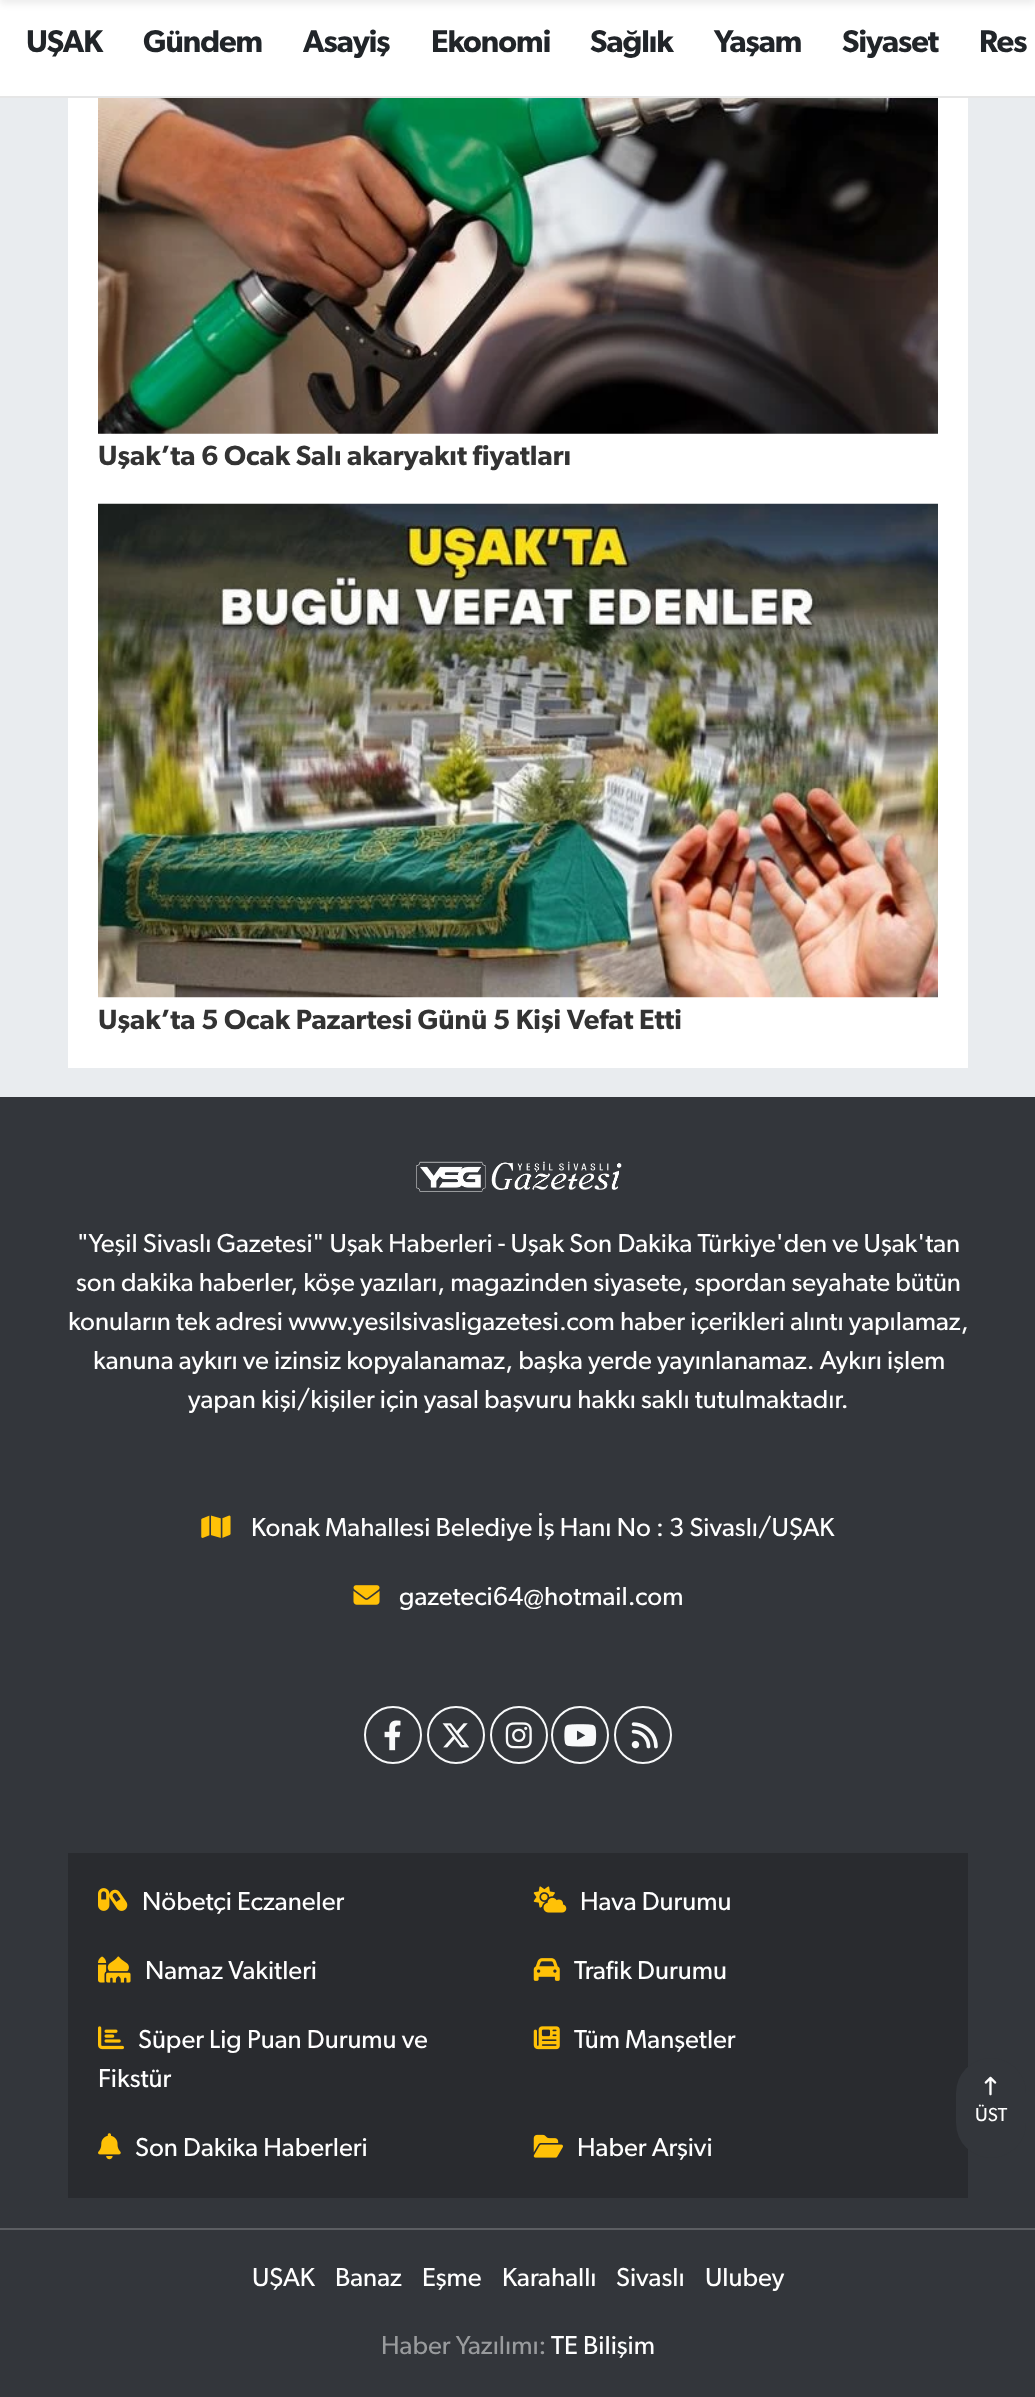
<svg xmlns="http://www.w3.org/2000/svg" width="1035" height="2397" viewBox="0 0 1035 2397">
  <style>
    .t1 { font: 600 31.5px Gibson; letter-spacing: -1px; fill: #212529; }
    .t2 { font: 600 28px Gibson; fill: #333; }
    .t3 { font: 26.05px Gibson; fill: #fff; }
    .t4 { font: 26.05px Gibson; fill: #999b9d; }
    .t5 { font: 19px Gibson; fill: #fff; }
  </style>
  <rect width="100%" height="100%" fill="#e9ecef"/>
  <rect x="0" y="0" width="1035" height="96" fill="#fff"/>
  <rect x="0" y="-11" width="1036" height="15" fill="#00000012" filter="blur(3.5px)"/>
  <rect x="0" y="96" width="1035" height="2" fill="#e6e6e6"/>
  <text x="26" y="52" class="t1">UŞAK</text>
  <text x="143" y="52" class="t1">Gündem</text>
  <text x="303" y="52" class="t1">Asayiş</text>
  <text x="431" y="52" class="t1">Ekonomi</text>
  <text x="590" y="52" class="t1">Sağlık</text>
  <text x="714" y="52" class="t1">Yaşam</text>
  <text x="842" y="52" class="t1">Siyaset</text>
  <text x="979" y="52" class="t1">Res</text>
  <rect x="68" y="98" width="900" height="970" fill="#fff"/>
  <image x="98" y="98" width="840" height="336" href="images/1.png"/>
  <text x="98" y="465" class="t2">Uşak’ta 6 Ocak Salı akaryakıt fiyatları</text>
  <image x="98" y="503" width="840" height="495" href="images/2.png"/>
  <text x="98" y="1029" class="t2">Uşak’ta 5 Ocak Pazartesi Günü 5 Kişi Vefat Etti</text>
  <rect x="0" y="1097" width="1035" height="1131" fill="#33363b"/>
  <rect x="0" y="2228" width="1035" height="2" fill="#5c5e62"/>
  <image x="416" y="1161" width="206" height="31" href="images/3.png"/>
  <text x="77" y="1252" class="t3">"Yeşil Sivaslı Gazetesi" Uşak Haberleri - Uşak Son Dakika Türkiye'den ve Uşak'tan</text>
  <text x="76" y="1291" class="t3">son dakika haberler, köşe yazıları, magazinden siyasete, spordan seyahate bütün</text>
  <text x="68" y="1330" class="t3">konuların tek adresi www.yesilsivasligazetesi.com haber içerikleri alıntı yapılamaz,</text>
  <text x="93" y="1369" class="t3">kanuna aykırı ve izinsiz kopyalanamaz, başka yerde yayınlanamaz. Aykırı işlem</text>
  <text x="188" y="1408" class="t3">yapan kişi/kişiler için yasal başvuru hakkı saklı tutulmaktadır.</text>
  <image x="201" y="1515" width="30" height="23" href="images/4.png"/>
  <text x="251" y="1536" class="t3">Konak Mahallesi Belediye İş Hanı No : 3 Sivaslı/UŞAK</text>
  <image x="353" y="1585" width="27" height="20" href="images/5.png"/>
  <text x="399" y="1605" class="t3">gazeteci64@hotmail.com</text>
  <circle cx="393" cy="1735" r="28" fill="none" stroke="#f8f9fa" stroke-width="2"/>
  <image x="384" y="1720" width="17" height="31" href="images/6.png"/>
  <circle cx="456" cy="1735" r="28" fill="none" stroke="#f8f9fa" stroke-width="2"/>
  <image x="442" y="1723" width="28" height="25" href="images/7.png"/>
  <circle cx="519" cy="1735" r="28" fill="none" stroke="#f8f9fa" stroke-width="2"/>
  <image x="505" y="1722" width="27" height="27" href="images/8.png"/>
  <circle cx="580" cy="1735" r="28" fill="none" stroke="#f8f9fa" stroke-width="2"/>
  <image x="564" y="1724" width="33" height="23" href="images/9.png"/>
  <circle cx="643" cy="1735" r="28" fill="none" stroke="#f8f9fa" stroke-width="2"/>
  <image x="631" y="1722" width="27" height="27" href="images/10.png"/>
  <rect x="68" y="1853" width="900" height="345" fill="#292b2f"/>
  <image x="98" y="1888" width="30" height="23" href="images/11.png"/>
  <text x="142" y="1910" class="t3">Nöbetçi Eczaneler</text>
  <image x="533" y="1886" width="34" height="27" href="images/12.png"/>
  <text x="580" y="1910" class="t3">Hava Durumu</text>
  <image x="98" y="1956" width="33" height="27" href="images/13.png"/>
  <text x="145" y="1979" class="t3">Namaz Vakitleri</text>
  <image x="533" y="1958" width="27" height="23" href="images/14.png"/>
  <text x="574" y="1979" class="t3">Trafik Durumu</text>
  <image x="98" y="2026" width="26" height="24" href="images/15.png"/>
  <text x="138" y="2048" class="t3">Süper Lig Puan Durumu ve</text>
  <text x="98" y="2087" class="t3">Fikstür</text>
  <image x="533" y="2026" width="27" height="24" href="images/16.png"/>
  <text x="574" y="2048" class="t3">Tüm Manşetler</text>
  <image x="98" y="2133" width="23" height="27" href="images/17.png"/>
  <text x="135" y="2156" class="t3">Son Dakika Haberleri</text>
  <image x="533" y="2134" width="30" height="24" href="images/18.png"/>
  <text x="577" y="2156" class="t3">Haber Arşivi</text>
  <rect x="0" y="2230" width="1035" height="167" fill="#33363b"/>
  <text x="252" y="2286" class="t3">UŞAK</text>
  <text x="335" y="2286" class="t3">Banaz</text>
  <text x="422" y="2286" class="t3">Eşme</text>
  <text x="502" y="2286" class="t3">Karahallı</text>
  <text x="616" y="2286" class="t3">Sivaslı</text>
  <text x="705" y="2286" class="t3">Ulubey</text>
  <text x="381" y="2354" class="t4">Haber Yazılımı:</text>
  <text x="551" y="2354" class="t3">TE Bilişim</text>
  <rect x="956" y="2058" width="70" height="100" rx="35" fill="#33363b"/>
  <image x="984" y="2076" width="13" height="20" href="images/19.png"/>
  <text x="975" y="2121" class="t5">ÜST</text>
</svg>
